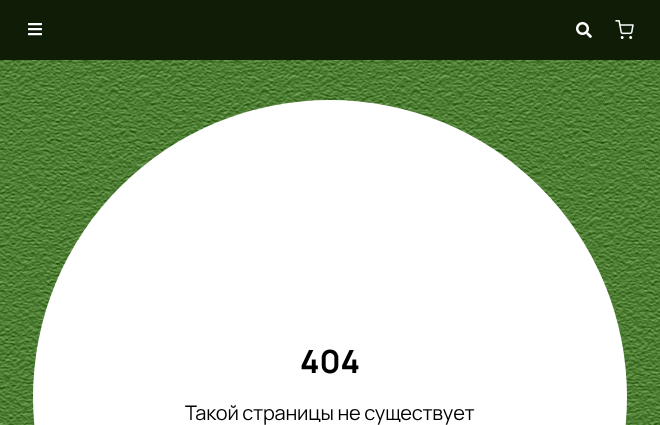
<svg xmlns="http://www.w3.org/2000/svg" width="660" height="425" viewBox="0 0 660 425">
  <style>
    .t1 { font: 200 32px Manrope; fill: #000; }
    .t2 { font: 200 20px 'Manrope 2'; letter-spacing: -0.2px; fill: #000; }
  </style>
  <rect width="100%" height="100%" fill="#fff"/>
  <image x="0" y="60" width="660" height="365" href="images/1.png"/>
  <rect x="0" y="0" width="660" height="60" fill="#0f1d07"/>
  <image x="28" y="23" width="14" height="14" href="images/2.png"/>
  <image x="576" y="22" width="16" height="16" href="images/3.png"/>
  <image x="615" y="20" width="19" height="19" href="images/4.png"/>
  <circle cx="330" cy="397" r="297" fill="#fff"/>
  <text x="300" y="373" class="t1">404</text>
  <text x="185" y="420" class="t2">Такой страницы не существует</text>
</svg>
